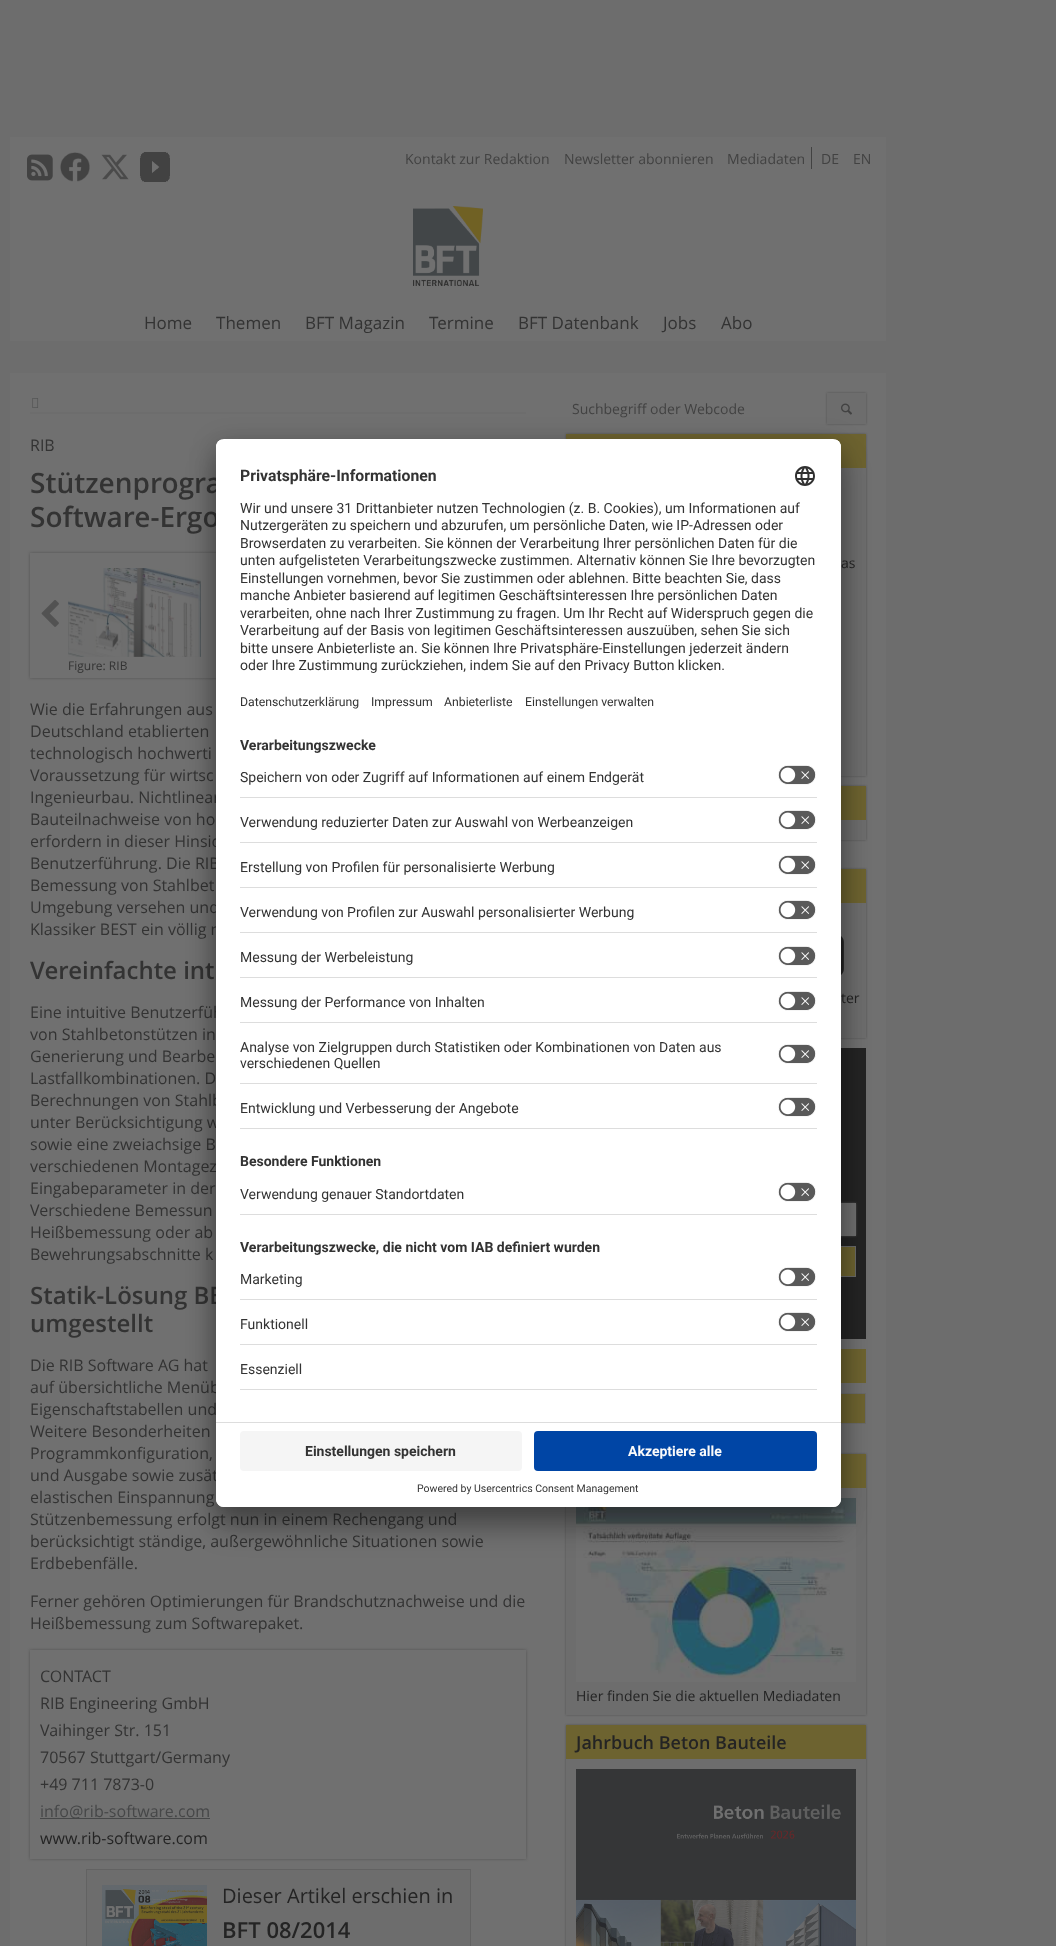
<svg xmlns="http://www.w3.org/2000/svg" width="1056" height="1946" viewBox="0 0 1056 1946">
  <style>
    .t1 { font: 14px Open Sans; fill: #424242; }
    .t2 { font: 17px Open Sans; fill: #333; }
    .t3 { font: 16px Open Sans; fill: #333; }
    .t4 { font: 600 28px Open Sans; fill: #333; }
    .t5 { font: 12px Open Sans; fill: #333; }
    .t6 { font: 600 24px Open Sans; fill: #333; }
    .t7 { font: 16px Open Sans; fill: #464748; }
    .t8 { font: 16px Open Sans; fill: #242424; }
    .t9 { font: 20px Open Sans; fill: #242424; }
    .t10 { font: 600 22px Open Sans; fill: #242424; }
    .t11 { font: 14px Open Sans; fill: #242424; }
    .t12 { font: 600 18px Open Sans; fill: #242424; }
    .t13 { font: bold 15.75px Roboto; fill: #333; }
    .t14 { font: 14px Roboto; fill: #333; }
    .t15 { font: 12.25px Roboto; fill: #333; }
    .t16 { font: bold 14px Roboto; fill: #333; }
    .t17 { font: bold 14px Roboto; fill: #fafafa; }
    .t18 { font: 10.5px Roboto; fill: #333; }
  </style>
  <defs>
    <clipPath id="clip1"><path d="M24 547H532V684H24ZM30 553H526V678H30Z" clip-rule="evenodd"/></clipPath>
    <clipPath id="clip2"><path d="M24 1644H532V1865H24ZM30 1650H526V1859H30Z" clip-rule="evenodd"/></clipPath>
    <clipPath id="clip3"><rect x="216" y="439" width="625" height="1068" rx="8"/></clipPath>
    <clipPath id="clip4"><path d="M224 439H833C837.5 439 841 442.5 841 447V1422H216V447C216 442.5 219.5 439 224 439Z"/></clipPath>
  </defs>
  <rect width="100%" height="100%" fill="#6d6d6d"/>
  <rect x="10" y="137" width="876" height="204" fill="#707070"/>
  <image x="27" y="154" width="26" height="27" href="images/1.png"/>
  <image x="60" y="152" width="30" height="30" href="images/2.png"/>
  <image x="101" y="154" width="28" height="26" href="images/3.png"/>
  <image x="140" y="152" width="30" height="30" href="images/4.png"/>
  <text x="405" y="164" class="t1">Kontakt zur Redaktion</text>
  <text x="564" y="164" class="t1">Newsletter abonnieren</text>
  <text x="727" y="164" class="t1">Mediadaten</text>
  <rect x="811" y="147" width="1" height="22" fill="#424242"/>
  <text x="821" y="164" class="t1">DE</text>
  <text x="853" y="164" class="t1">EN</text>
  <image x="413" y="206" width="70" height="80" href="images/5.png"/>
  <text x="144" y="329" class="t2">Home</text>
  <text x="216" y="329" class="t2">Themen</text>
  <text x="305" y="329" class="t2">BFT Magazin</text>
  <text x="429" y="329" class="t2">Termine</text>
  <text x="518" y="329" class="t2">BFT Datenbank</text>
  <text x="663" y="329" class="t2">Jobs</text>
  <text x="721" y="329" class="t2">Abo</text>
  <rect x="10" y="373" width="876" height="1573" fill="#707070"/>
  <rect x="30" y="412" width="496" height="2" fill="#6d6d6d"/>
  <image x="32" y="398" width="7" height="10" href="images/6.png"/>
  <text x="30" y="451" class="t3">RIB</text>
  <text x="30" y="493" class="t4">Stützenprogra</text>
  <text x="30" y="527" class="t4">Software-Ergo</text>
  <g clip-path="url(#clip1)">
    <rect x="30" y="553" width="496" height="125" fill="#525252" filter="blur(1.5px)"/>
  </g>
  <image x="41" y="600" width="18" height="27" href="images/7.png"/>
  <image x="68" y="568" width="133" height="89" href="images/8.png"/>
  <text x="68" y="670" class="t5">Figure: RIB</text>
  <text x="30" y="715" class="t3">Wie die Erfahrungen aus</text>
  <text x="30" y="737" class="t3">Deutschland etablierten</text>
  <text x="30" y="759" class="t3">technologisch hochwerti</text>
  <text x="30" y="781" class="t3">Voraussetzung für wirtsc</text>
  <text x="30" y="803" class="t3">Ingenieurbau. Nichtlinear</text>
  <text x="30" y="825" class="t3">Bauteilnachweise von ho</text>
  <text x="30" y="847" class="t3">erfordern in dieser Hinsic</text>
  <text x="30" y="869" class="t3">Benutzerführung. Die RIB</text>
  <text x="30" y="891" class="t3">Bemessung von Stahlbet</text>
  <text x="30" y="913" class="t3">Umgebung versehen und</text>
  <text x="30" y="935" class="t3">Klassiker BEST ein völlig n</text>
  <text x="30" y="979" class="t6">Vereinfachte int</text>
  <text x="30" y="1018" class="t3">Eine intuitive Benutzerfüh</text>
  <text x="30" y="1040" class="t3">von Stahlbetonstützen in</text>
  <text x="30" y="1062" class="t3">Generierung und Bearbe</text>
  <text x="30" y="1084" class="t3">Lastfallkombinationen. D</text>
  <text x="30" y="1106" class="t3">Berechnungen von Stahlb</text>
  <text x="30" y="1128" class="t3">unter Berücksichtigung w</text>
  <text x="30" y="1150" class="t3">sowie eine zweiachsige B</text>
  <text x="30" y="1172" class="t3">verschiedenen Montagez</text>
  <text x="30" y="1194" class="t3">Eingabeparameter in der</text>
  <text x="30" y="1216" class="t3">Verschiedene Bemessun</text>
  <text x="30" y="1238" class="t3">Heißbemessung oder ab</text>
  <text x="30" y="1260" class="t3">Bewehrungsabschnitte k</text>
  <text x="30" y="1304" class="t6">Statik-Lösung BE</text>
  <text x="30" y="1332" class="t6">umgestellt</text>
  <text x="30" y="1371" class="t3">Die RIB Software AG hat</text>
  <text x="30" y="1393" class="t3">auf übersichtliche Menüb</text>
  <text x="30" y="1415" class="t3">Eigenschaftstabellen und</text>
  <text x="30" y="1437" class="t3">Weitere Besonderheiten</text>
  <text x="30" y="1459" class="t3">Programmkonfiguration,</text>
  <text x="30" y="1481" class="t3">und Ausgabe sowie zusät</text>
  <text x="30" y="1503" class="t3">elastischen Einspannung</text>
  <text x="30" y="1525" class="t3">Stützenbemessung erfolgt nun in einem Rechengang und</text>
  <text x="30" y="1547" class="t3">berücksichtigt ständige, außergewöhnliche Situationen sowie</text>
  <text x="30" y="1569" class="t3">Erdbebenfälle.</text>
  <text x="30" y="1607" class="t3">Ferner gehören Optimierungen für Brandschutznachweise und die</text>
  <text x="30" y="1629" class="t3">Heißbemessung zum Softwarepaket.</text>
  <g clip-path="url(#clip2)">
    <rect x="30" y="1650" width="496" height="209" fill="#525252" filter="blur(1.5px)"/>
  </g>
  <text x="40" y="1682" class="t3">CONTACT</text>
  <text x="40" y="1709" class="t3">RIB Engineering GmbH</text>
  <text x="40" y="1736" class="t3">Vaihinger Str. 151</text>
  <text x="40" y="1763" class="t3">70567 Stuttgart/Germany</text>
  <text x="40" y="1790" class="t3">+49 711 7873-0</text>
  <rect x="40" y="1818" width="170" height="1" fill="#464748"/>
  <text x="40" y="1817" class="t7">info@rib-software.com</text>
  <text x="40" y="1844" class="t8">www.rib-software.com</text>
  <rect x="86.5" y="1869.5" width="384" height="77" fill="#6d6d6d" stroke="#626262"/>
  <image x="102" y="1885" width="105" height="61" href="images/9.png"/>
  <text x="222" y="1903" class="t9">Dieser Artikel erschien in</text>
  <text x="222" y="1938" class="t10">BFT 08/2014</text>
  <text x="572" y="414" class="t1">Suchbegriff oder Webcode</text>
  <rect x="827" y="393" width="39" height="31" fill="#525252" filter="blur(1px)"/>
  <rect x="827" y="393" width="39" height="31" fill="#6d6d6d"/>
  <image x="841" y="403" width="11" height="12" href="images/10.png"/>
  <rect x="566" y="434" width="300" height="342" fill="#525252" filter="blur(1px)"/>
  <rect x="841" y="468" width="25" height="308" fill="#6d6d6d"/>
  <rect x="566" y="434" width="300" height="34" fill="#6d6330"/>
  <text x="841" y="568" class="t11">as</text>
  <rect x="566" y="786" width="300" height="54" fill="#525252" filter="blur(1px)"/>
  <rect x="841" y="820" width="25" height="20" fill="#6d6d6d"/>
  <rect x="841" y="786" width="25" height="34" fill="#6d6330"/>
  <rect x="566" y="869" width="300" height="169" fill="#525252" filter="blur(1px)"/>
  <rect x="841" y="903" width="25" height="135" fill="#6d6d6d"/>
  <rect x="841" y="869" width="25" height="34" fill="#6d6330"/>
  <image x="841" y="936" width="3" height="39" href="images/11.png"/>
  <text x="841" y="1003" class="t11">ter</text>
  <rect x="841" y="1048" width="25" height="291" fill="#242424"/>
  <rect x="576" y="1203" width="280" height="33" fill="#525252" filter="blur(1px)"/>
  <rect x="841" y="1203" width="15" height="33" fill="#707070"/>
  <rect x="841" y="1247" width="14" height="29" fill="#6d6330"/>
  <rect x="576.5" y="1246.5" width="279" height="30" fill="none" stroke="#696969"/>
  <rect x="841" y="1349" width="25" height="34" fill="#6d6330"/>
  <rect x="841" y="1394" width="24" height="29" fill="#6d6330"/>
  <rect x="566.5" y="1393.5" width="299" height="30" fill="none" stroke="#696969"/>
  <rect x="566" y="1454" width="300" height="261" fill="#525252" filter="blur(1px)"/>
  <rect x="566" y="1488" width="300" height="227" fill="#6d6d6d"/>
  <rect x="841" y="1454" width="25" height="34" fill="#6d6330"/>
  <image x="576" y="1498" width="280" height="184" href="images/12.png"/>
  <text x="576" y="1701" class="t11">Hier finden Sie die aktuellen Mediadaten</text>
  <rect x="566" y="1725" width="300" height="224" fill="#525252" filter="blur(1px)"/>
  <rect x="566" y="1759" width="300" height="187" fill="#6d6d6d"/>
  <rect x="566" y="1725" width="300" height="34" fill="#6d6330"/>
  <text x="576" y="1749" class="t12">Jahrbuch Beton Bauteile</text>
  <image x="576" y="1769" width="280" height="177" href="images/13.png"/>
  <rect x="216" y="459" width="625" height="1068" rx="8" fill="#0000004d" filter="blur(14px)"/>
  <rect x="216" y="444" width="625" height="1068" rx="8" fill="#00000038" filter="blur(13px)"/>
  <rect x="216" y="439" width="625" height="1068" rx="8" fill="#fff"/>
  <g clip-path="url(#clip3)">
    <g clip-path="url(#clip4)">
      <rect x="216" y="440" width="625" height="982" fill="#fff"/>
      <rect x="216" y="440" width="625" height="285" fill="#fff"/>
    </g>
  </g>
  <text x="240" y="481" class="t13">Privatsphäre-Informationen</text>
  <image x="795" y="466" width="20" height="20" href="images/14.png"/>
  <text x="240" y="513" class="t14">Wir und unsere 31 Drittanbieter nutzen Technologien (z. B. Cookies), um Informationen auf</text>
  <text x="240" y="530" class="t14">Nutzergeräten zu speichern und abzurufen, um persönliche Daten, wie IP-Adressen oder</text>
  <text x="240" y="548" class="t14">Browserdaten zu verarbeiten. Sie können der Verarbeitung Ihrer persönlichen Daten für die</text>
  <text x="240" y="565" class="t14">unten aufgelisteten Verarbeitungszwecke zustimmen. Alternativ können Sie Ihre bevorzugten</text>
  <text x="240" y="583" class="t14">Einstellungen vornehmen, bevor Sie zustimmen oder ablehnen. Bitte beachten Sie, dass</text>
  <text x="240" y="600" class="t14">manche Anbieter basierend auf legitimen Geschäftsinteressen Ihre persönlichen Daten</text>
  <text x="240" y="618" class="t14">verarbeiten, ohne nach Ihrer Zustimmung zu fragen. Um Ihr Recht auf Widerspruch gegen die</text>
  <text x="240" y="635" class="t14">Verarbeitung auf der Basis von legitimen Geschäftsinteressen auszuüben, sehen Sie sich</text>
  <text x="240" y="653" class="t14">bitte unsere Anbieterliste an. Sie können Ihre Privatsphäre-Einstellungen jederzeit ändern</text>
  <text x="240" y="670" class="t14">oder Ihre Zustimmung zurückziehen, indem Sie auf den Privacy Button klicken.</text>
  <text x="240" y="706" class="t15">Datenschutzerklärung</text>
  <text x="371" y="706" class="t15">Impressum</text>
  <text x="444" y="706" class="t15">Anbieterliste</text>
  <text x="525" y="706" class="t15">Einstellungen verwalten</text>
  <text x="240" y="750" class="t16">Verarbeitungszwecke</text>
  <rect x="240" y="797" width="577" height="1" fill="#ddd"/>
  <text x="240" y="782" class="t14">Speichern von oder Zugriff auf Informationen auf einem Endgerät</text>
  <image x="778" y="765" width="38" height="20" href="images/15.png"/>
  <rect x="240" y="842" width="577" height="1" fill="#ddd"/>
  <text x="240" y="827" class="t14">Verwendung reduzierter Daten zur Auswahl von Werbeanzeigen</text>
  <image x="778" y="810" width="38" height="20" href="images/15.png"/>
  <rect x="240" y="887" width="577" height="1" fill="#ddd"/>
  <text x="240" y="872" class="t14">Erstellung von Profilen für personalisierte Werbung</text>
  <image x="778" y="855" width="38" height="20" href="images/15.png"/>
  <rect x="240" y="932" width="577" height="1" fill="#ddd"/>
  <text x="240" y="917" class="t14">Verwendung von Profilen zur Auswahl personalisierter Werbung</text>
  <image x="778" y="900" width="38" height="20" href="images/15.png"/>
  <rect x="240" y="977" width="577" height="1" fill="#ddd"/>
  <text x="240" y="962" class="t14">Messung der Werbeleistung</text>
  <image x="778" y="946" width="38" height="20" href="images/15.png"/>
  <rect x="240" y="1022" width="577" height="1" fill="#ddd"/>
  <text x="240" y="1007" class="t14">Messung der Performance von Inhalten</text>
  <image x="778" y="991" width="38" height="20" href="images/15.png"/>
  <rect x="240" y="1083" width="577" height="1" fill="#ddd"/>
  <text x="240" y="1052" class="t14">Analyse von Zielgruppen durch Statistiken oder Kombinationen von Daten aus</text>
  <text x="240" y="1068" class="t14">verschiedenen Quellen</text>
  <image x="778" y="1044" width="38" height="20" href="images/15.png"/>
  <rect x="240" y="1128" width="577" height="1" fill="#ddd"/>
  <text x="240" y="1113" class="t14">Entwicklung und Verbesserung der Angebote</text>
  <image x="778" y="1097" width="38" height="20" href="images/15.png"/>
  <text x="240" y="1166" class="t16">Besondere Funktionen</text>
  <rect x="240" y="1214" width="577" height="1" fill="#ddd"/>
  <text x="240" y="1199" class="t14">Verwendung genauer Standortdaten</text>
  <image x="778" y="1182" width="38" height="20" href="images/15.png"/>
  <text x="240" y="1252" class="t16">Verarbeitungszwecke, die nicht vom IAB definiert wurden</text>
  <rect x="240" y="1299" width="577" height="1" fill="#ddd"/>
  <text x="240" y="1284" class="t14">Marketing</text>
  <image x="778" y="1267" width="38" height="20" href="images/15.png"/>
  <rect x="240" y="1344" width="577" height="1" fill="#ddd"/>
  <text x="240" y="1329" class="t14">Funktionell</text>
  <image x="778" y="1312" width="38" height="20" href="images/15.png"/>
  <rect x="240" y="1389" width="577" height="1" fill="#ddd"/>
  <text x="240" y="1374" class="t14">Essenziell</text>
  <path d="M216 1422H841V1499C841 1503.5 837.5 1507 833 1507H224C219.5 1507 216 1503.5 216 1499Z" fill="#fff"/>
  <rect x="216" y="1422" width="625" height="1" fill="#ddd"/>
  <rect x="240" y="1431" width="282" height="40" rx="4" fill="#f5f5f5"/>
  <text x="305" y="1456" class="t16">Einstellungen speichern</text>
  <rect x="534" y="1431" width="283" height="40" rx="4" fill="#0045a5"/>
  <text x="628" y="1456" class="t17">Akzeptiere alle</text>
  <text x="417" y="1492" class="t18">Powered by Usercentrics Consent Management</text>
</svg>
